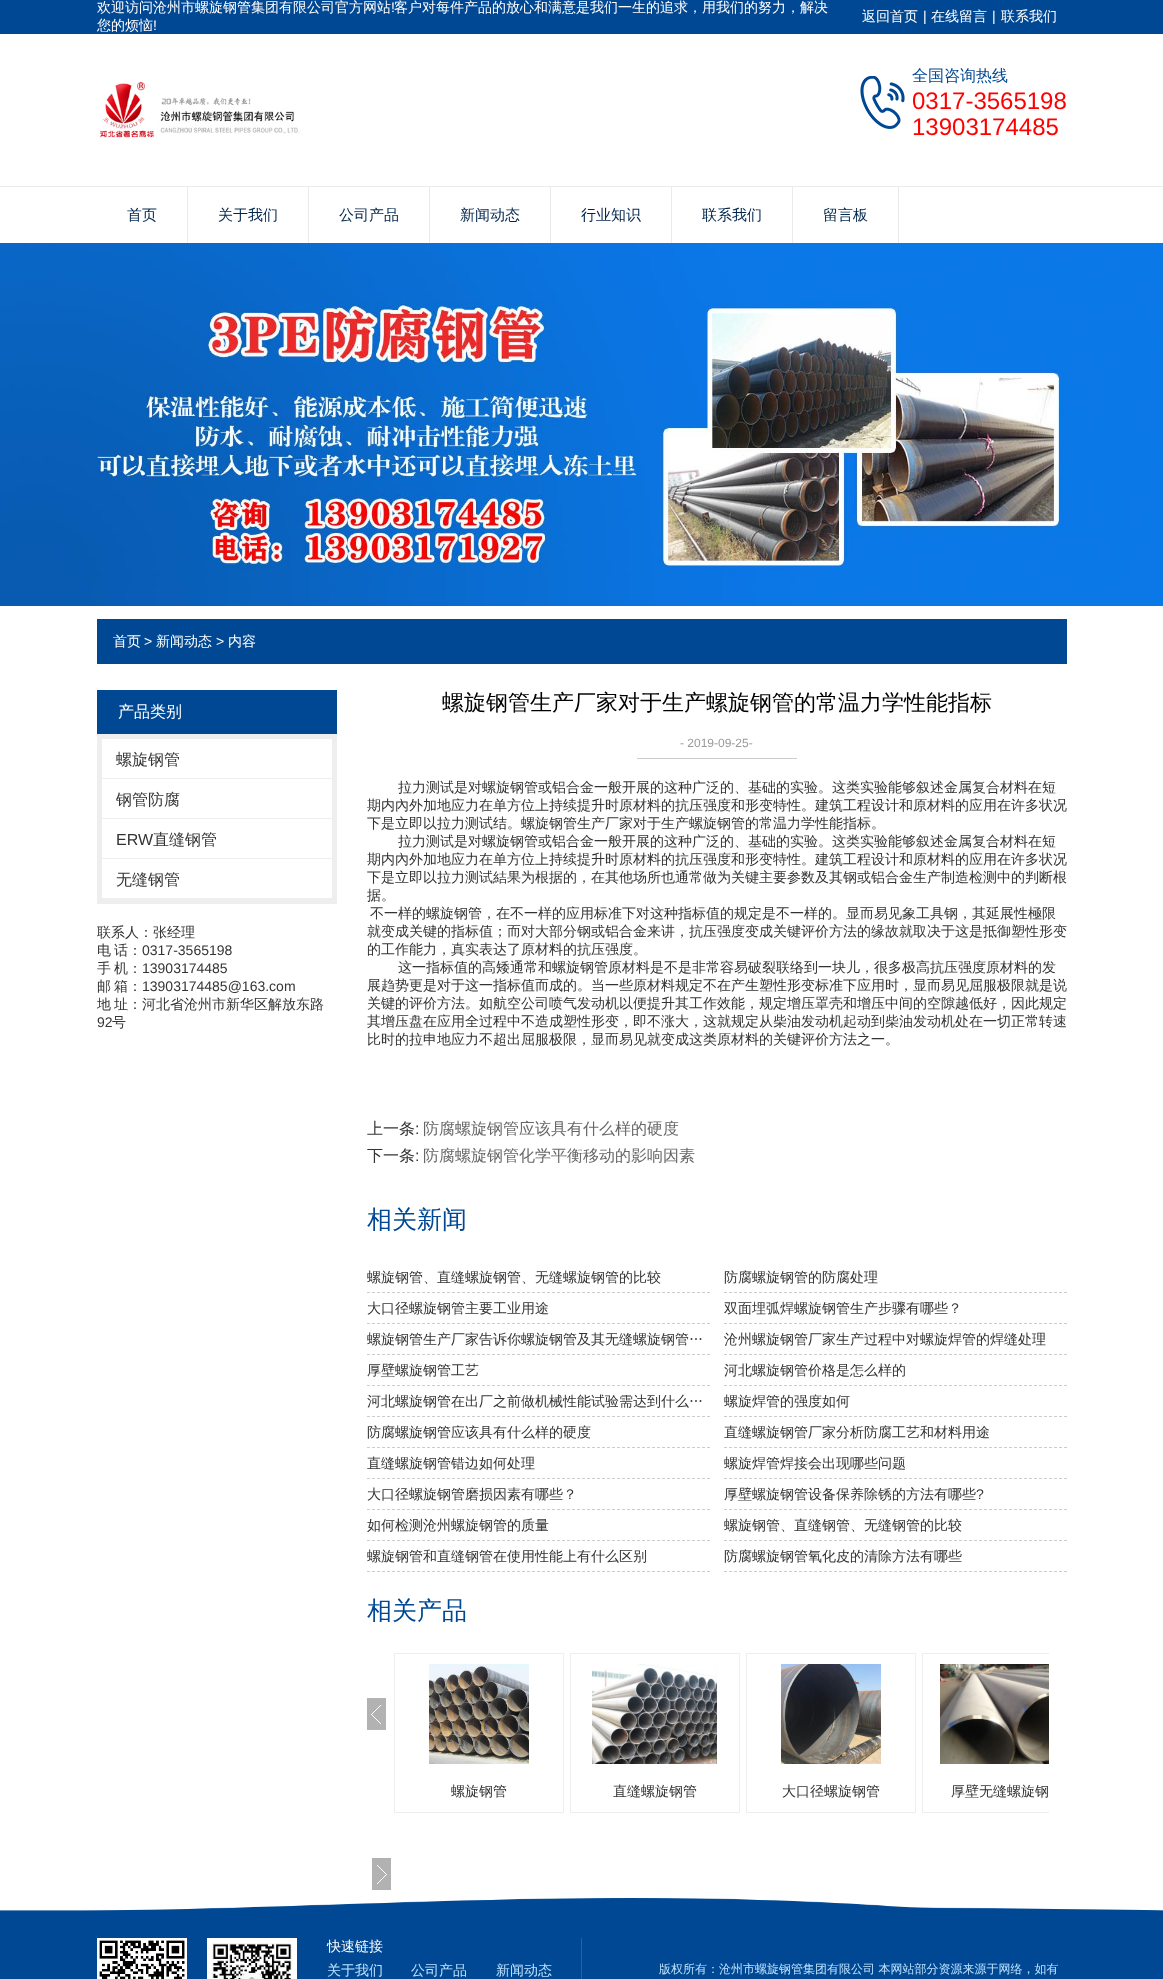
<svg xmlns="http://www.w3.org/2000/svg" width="1163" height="1979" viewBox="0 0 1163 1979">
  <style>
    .t1 { font: 500 14px WenQuanYi Zen Hei; fill: #fff; }
    .t2 { font: 14px Liberation Sans; fill: #fff; }
    .t3 { font: 500 16px WenQuanYi Zen Hei; fill: #004893; }
    .t4 { font: 24px Liberation Sans; fill: #f00; }
    .t5 { font: 500 15px WenQuanYi Zen Hei; fill: #00254c; }
    .t6 { font: 500 16px WenQuanYi Zen Hei; fill: #fff; }
    .t7 { font: 500 16px WenQuanYi Zen Hei; fill: #333; }
    .t8 { font: 16px Liberation Sans; fill: #333; }
    .t9 { font: 500 14px WenQuanYi Zen Hei; fill: #333; }
    .t10 { font: 14px Liberation Sans; fill: #333; }
    .t11 { font: 500 22px WenQuanYi Zen Hei; fill: #000; }
    .t12 { font: 12px Liberation Sans; fill: #999; }
    .t13 { font: 500 16px WenQuanYi Zen Hei; fill: #666; }
    .t14 { font: 500 25px WenQuanYi Zen Hei; fill: #004893; }
    .t15 { font: 500 14px WenQuanYi Zen Hei; fill: #bde2ff; }
    .t16 { font: 500 12px WenQuanYi Zen Hei; fill: #bde2ff; }
  </style>
  <defs>
    <clipPath id="clip1"><rect x="367" y="1262" width="343" height="30"/></clipPath>
    <clipPath id="clip2"><rect x="367" y="1324" width="343" height="30"/></clipPath>
    <clipPath id="clip3"><rect x="724" y="1386" width="343" height="30"/></clipPath>
    <clipPath id="clip4"><rect x="724" y="1448" width="343" height="30"/></clipPath>
    <clipPath id="clip5"><rect x="724" y="1510" width="343" height="30"/></clipPath>
    <clipPath id="clip6"><rect x="367" y="1541" width="343" height="30"/></clipPath>
    <clipPath id="clip7"><rect x="391" y="1653" width="658" height="160"/></clipPath>
  </defs>
  <rect width="100%" height="100%" fill="#fff"/>
  <rect x="0" y="0" width="1163" height="34" fill="#004893"/>
  <text x="97" y="12" class="t1">欢迎访问沧州市螺旋钢管集团有限公司官方网站</text>
  <text x="391" y="12" class="t2">!</text>
  <text x="394" y="12" class="t1">客户对每件产品的放心和满意是我们一生的追求，用我们的努力，解决</text>
  <text x="97" y="30" class="t1">您的烦恼</text>
  <text x="153" y="30" class="t2">!</text>
  <text x="862" y="21" class="t1">返回首页</text>
  <text x="923" y="21" class="t2">|</text>
  <text x="931" y="21" class="t1">在线留言</text>
  <text x="992" y="21" class="t2">|</text>
  <text x="1001" y="21" class="t1">联系我们</text>
  <image x="99" y="82" width="201" height="56" href="images/1.png"/>
  <image x="860" y="76" width="45" height="53" href="images/2.png"/>
  <text x="912" y="81" class="t3">全国咨询热线</text>
  <text x="912" y="109" class="t4">0317-3565198</text>
  <text x="912" y="135" class="t4">13903174485</text>
  <rect x="0" y="186" width="1163" height="1" fill="#ebebeb"/>
  <rect x="187" y="187" width="1" height="56" fill="#ebebeb"/>
  <text x="127" y="220" class="t5">首页</text>
  <rect x="308" y="187" width="1" height="56" fill="#ebebeb"/>
  <text x="218" y="220" class="t5">关于我们</text>
  <rect x="429" y="187" width="1" height="56" fill="#ebebeb"/>
  <text x="339" y="220" class="t5">公司产品</text>
  <rect x="550" y="187" width="1" height="56" fill="#ebebeb"/>
  <text x="460" y="220" class="t5">新闻动态</text>
  <rect x="671" y="187" width="1" height="56" fill="#ebebeb"/>
  <text x="581" y="220" class="t5">行业知识</text>
  <rect x="792" y="187" width="1" height="56" fill="#ebebeb"/>
  <text x="702" y="220" class="t5">联系我们</text>
  <rect x="898" y="187" width="1" height="56" fill="#ebebeb"/>
  <text x="823" y="220" class="t5">留言板</text>
  <image x="0" y="243" width="1163" height="363" href="images/3.png"/>
  <rect x="97" y="619" width="970" height="45" fill="#004893"/>
  <text x="113" y="646" class="t1">首页</text>
  <text x="144" y="646" class="t2">&gt;</text>
  <text x="156" y="646" class="t1">新闻动态</text>
  <text x="216" y="646" class="t2">&gt;</text>
  <text x="228" y="646" class="t1">内容</text>
  <rect x="97" y="690" width="240" height="44" fill="#004893"/>
  <text x="118" y="717" class="t6">产品类别</text>
  <rect x="99.5" y="736.5" width="235" height="165" fill="none" stroke="#eee" stroke-width="5"/>
  <rect x="102" y="778" width="230" height="1" fill="#eee"/>
  <text x="116" y="765" class="t7">螺旋钢管</text>
  <rect x="102" y="818" width="230" height="1" fill="#eee"/>
  <text x="116" y="805" class="t7">钢管防腐</text>
  <rect x="102" y="858" width="230" height="1" fill="#eee"/>
  <text x="116" y="845" class="t8">ERW</text>
  <text x="153" y="845" class="t7">直缝钢管</text>
  <rect x="102" y="898" width="230" height="1" fill="#eee"/>
  <text x="116" y="885" class="t7">无缝钢管</text>
  <text x="97" y="937" class="t9">联系人：张经理</text>
  <text x="97" y="955" class="t9">电</text>
  <text x="114" y="955" class="t9">话：</text>
  <text x="142" y="955" class="t10">0317-3565198</text>
  <text x="97" y="973" class="t9">手</text>
  <text x="114" y="973" class="t9">机：</text>
  <text x="142" y="973" class="t10">13903174485</text>
  <text x="97" y="991" class="t9">邮</text>
  <text x="114" y="991" class="t9">箱：</text>
  <text x="142" y="991" class="t10">13903174485@163.com</text>
  <text x="97" y="1009" class="t9">地</text>
  <text x="114" y="1009" class="t9">址：河北省沧州市新华区解放东路</text>
  <text x="97" y="1027" class="t10">92</text>
  <text x="112" y="1027" class="t9">号</text>
  <text x="442" y="710" class="t11">螺旋钢管生产厂家对于生产螺旋钢管的常温力学性能指标</text>
  <rect x="637" y="758" width="160" height="1" fill="#ccc"/>
  <text x="680" y="747" class="t12">- 2019-09-25-</text>
  <text x="398" y="792" class="t9">拉力测试是对螺旋钢管或铝合金一般开展的这种广泛的、基础的实验。这类实验能够叙述金属复合材料在短</text>
  <text x="367" y="810" class="t9">期内內外加地应力在单方位上持续提升时原材料的抗压强度和形变特性。建筑工程设计和原材料的应用在许多状况</text>
  <text x="367" y="828" class="t9">下是立即以拉力测试结。螺旋钢管生产厂家对于生产螺旋钢管的常温力学性能指标。</text>
  <text x="398" y="846" class="t9">拉力测试是对螺旋钢管或铝合金一般开展的这种广泛的、基础的实验。这类实验能够叙述金属复合材料在短</text>
  <text x="367" y="864" class="t9">期内內外加地应力在单方位上持续提升时原材料的抗压强度和形变特性。建筑工程设计和原材料的应用在许多状况</text>
  <text x="367" y="882" class="t9">下是立即以拉力测试結果为根据的，在其他场所也通常做为关键主要参数及其钢或铝合金生产制造检测中的判断根</text>
  <text x="367" y="900" class="t9">据。</text>
  <text x="370" y="918" class="t9">不一样的螺旋钢管，在不一样的应用标准下对这种指标值的规定是不一样的。显而易见象工具钢，其延展性極限</text>
  <text x="367" y="936" class="t9">就变成关键的指标值；而对大部分钢或铝合金来讲，抗压强度变成关键评价方法的缘故就取决于这是抵御塑性形变</text>
  <text x="367" y="954" class="t9">的工作能力，真实表达了原材料的抗压强度。</text>
  <text x="398" y="972" class="t9">这一指标值的高矮通常和螺旋钢管原材料是不是非常容易破裂联络到一块儿，很多极高抗压强度原材料的发</text>
  <text x="367" y="990" class="t9">展趋势更是对于这一指标值而成的。当一些原材料规定不在产生塑性形变标准下应用时，显而易见屈服极限就是说</text>
  <text x="367" y="1008" class="t9">关键的评价方法。如航空公司喷气发动机以便提升其工作效能，规定增压罩壳和增压中间的空隙越低好，因此规定</text>
  <text x="367" y="1026" class="t9">其增压盘在应用全过程中不造成塑性形变，即不涨大，这就规定从柴油发动机起动到柴油发动机处在一切正常转速</text>
  <text x="367" y="1044" class="t9">比时的拉申地应力不超出屈服极限，显而易见就变成这类原材料的关键评价方法之一。</text>
  <text x="367" y="1134" class="t7">上一条</text>
  <text x="415" y="1134" class="t8">:</text>
  <text x="423" y="1134" class="t13">防腐螺旋钢管应该具有什么样的硬度</text>
  <text x="367" y="1161" class="t7">下一条</text>
  <text x="415" y="1161" class="t8">:</text>
  <text x="423" y="1161" class="t13">防腐螺旋钢管化学平衡移动的影响因素</text>
  <text x="367" y="1228" class="t14">相关新闻</text>
  <path d="M367 1292.5H710" fill="none" stroke="#ccc" stroke-dasharray="3 2"/>
  <g clip-path="url(#clip1)">
    <text x="367" y="1282" class="t9">螺旋钢管、直缝螺旋钢管、无缝螺旋钢管的比较</text>
  </g>
  <path d="M724 1292.5H1067" fill="none" stroke="#ccc" stroke-dasharray="3 2"/>
  <text x="724" y="1282" class="t9">防腐螺旋钢管的防腐处理</text>
  <path d="M367 1323.5H710" fill="none" stroke="#ccc" stroke-dasharray="3 2"/>
  <text x="367" y="1313" class="t9">大口径螺旋钢管主要工业用途</text>
  <path d="M724 1323.5H1067" fill="none" stroke="#ccc" stroke-dasharray="3 2"/>
  <text x="724" y="1313" class="t9">双面埋弧焊螺旋钢管生产步骤有哪些？</text>
  <path d="M367 1354.5H710" fill="none" stroke="#ccc" stroke-dasharray="3 2"/>
  <g clip-path="url(#clip2)">
    <text x="367" y="1344" class="t9">螺旋钢管生产厂家告诉你螺旋钢管及其无缝螺旋钢管…</text>
  </g>
  <path d="M724 1354.5H1067" fill="none" stroke="#ccc" stroke-dasharray="3 2"/>
  <text x="724" y="1344" class="t9">沧州螺旋钢管厂家生产过程中对螺旋焊管的焊缝处理</text>
  <path d="M367 1385.5H710" fill="none" stroke="#ccc" stroke-dasharray="3 2"/>
  <text x="367" y="1375" class="t9">厚壁螺旋钢管工艺</text>
  <path d="M724 1385.5H1067" fill="none" stroke="#ccc" stroke-dasharray="3 2"/>
  <text x="724" y="1375" class="t9">河北螺旋钢管价格是怎么样的</text>
  <path d="M367 1416.5H710" fill="none" stroke="#ccc" stroke-dasharray="3 2"/>
  <text x="367" y="1406" class="t9">河北螺旋钢管在出厂之前做机械性能试验需达到什么…</text>
  <path d="M724 1416.5H1067" fill="none" stroke="#ccc" stroke-dasharray="3 2"/>
  <g clip-path="url(#clip3)">
    <text x="724" y="1406" class="t9">螺旋焊管的强度如何</text>
  </g>
  <path d="M367 1447.5H710" fill="none" stroke="#ccc" stroke-dasharray="3 2"/>
  <text x="367" y="1437" class="t9">防腐螺旋钢管应该具有什么样的硬度</text>
  <path d="M724 1447.5H1067" fill="none" stroke="#ccc" stroke-dasharray="3 2"/>
  <text x="724" y="1437" class="t9">直缝螺旋钢管厂家分析防腐工艺和材料用途</text>
  <path d="M367 1478.5H710" fill="none" stroke="#ccc" stroke-dasharray="3 2"/>
  <text x="367" y="1468" class="t9">直缝螺旋钢管错边如何处理</text>
  <path d="M724 1478.5H1067" fill="none" stroke="#ccc" stroke-dasharray="3 2"/>
  <g clip-path="url(#clip4)">
    <text x="724" y="1468" class="t9">螺旋焊管焊接会出现哪些问题</text>
  </g>
  <path d="M367 1509.5H710" fill="none" stroke="#ccc" stroke-dasharray="3 2"/>
  <text x="367" y="1499" class="t9">大口径螺旋钢管磨损因素有哪些？</text>
  <path d="M724 1509.5H1067" fill="none" stroke="#ccc" stroke-dasharray="3 2"/>
  <text x="724" y="1499" class="t9">厚壁螺旋钢管设备保养除锈的方法有哪些</text>
  <text x="976" y="1499" class="t10">?</text>
  <path d="M367 1540.5H710" fill="none" stroke="#ccc" stroke-dasharray="3 2"/>
  <text x="367" y="1530" class="t9">如何检测沧州螺旋钢管的质量</text>
  <path d="M724 1540.5H1067" fill="none" stroke="#ccc" stroke-dasharray="3 2"/>
  <g clip-path="url(#clip5)">
    <text x="724" y="1530" class="t9">螺旋钢管、直缝钢管、无缝钢管的比较</text>
  </g>
  <path d="M367 1571.5H710" fill="none" stroke="#ccc" stroke-dasharray="3 2"/>
  <g clip-path="url(#clip6)">
    <text x="367" y="1561" class="t9">螺旋钢管和直缝钢管在使用性能上有什么区别</text>
  </g>
  <path d="M724 1571.5H1067" fill="none" stroke="#ccc" stroke-dasharray="3 2"/>
  <text x="724" y="1561" class="t9">防腐螺旋钢管氧化皮的清除方法有哪些</text>
  <text x="367" y="1619" class="t14">相关产品</text>
  <image x="367" y="1698" width="19" height="32" href="images/4.png"/>
  <rect x="394.5" y="1653.5" width="169" height="159" fill="none" stroke="#eee"/>
  <image x="429" y="1664" width="100" height="100" href="images/5.png"/>
  <text x="451" y="1796" class="t9">螺旋钢管</text>
  <rect x="570.5" y="1653.5" width="169" height="159" fill="none" stroke="#eee"/>
  <image x="592" y="1664" width="125" height="100" href="images/6.png"/>
  <text x="613" y="1796" class="t9">直缝螺旋钢管</text>
  <rect x="746.5" y="1653.5" width="169" height="159" fill="none" stroke="#eee"/>
  <image x="781" y="1664" width="100" height="100" href="images/7.png"/>
  <text x="782" y="1796" class="t9">大口径螺旋钢管</text>
  <g clip-path="url(#clip7)">
    <rect x="922.5" y="1653.5" width="169" height="159" fill="none" stroke="#eee"/>
  </g>
  <image x="940" y="1664" width="109" height="100" href="images/8.png"/>
  <text x="951" y="1796" class="t9">厚壁无缝螺旋钢</text>
  <image x="372" y="1858" width="19" height="32" href="images/9.png"/>
  <rect x="0" y="1923" width="1163" height="56" fill="#004893"/>
  <image x="0" y="1898" width="1163" height="25" href="images/10.png"/>
  <rect x="581" y="1938" width="1" height="41" fill="#2062a8"/>
  <rect x="97" y="1938" width="90" height="41" fill="#fff"/>
  <image x="99" y="1940" width="86" height="39" href="images/11.png"/>
  <rect x="207" y="1938" width="90" height="41" fill="#fff"/>
  <image x="212" y="1943" width="80" height="36" href="images/12.png"/>
  <text x="327" y="1951" class="t1">快速链接</text>
  <text x="327" y="1975" class="t15">关于我们</text>
  <text x="411" y="1975" class="t15">公司产品</text>
  <text x="496" y="1975" class="t15">新闻动态</text>
  <text x="659" y="1973" class="t16">版权所有：沧州市螺旋钢管集团有限公司 本网站部分资源来源于网络，如有</text>
</svg>
